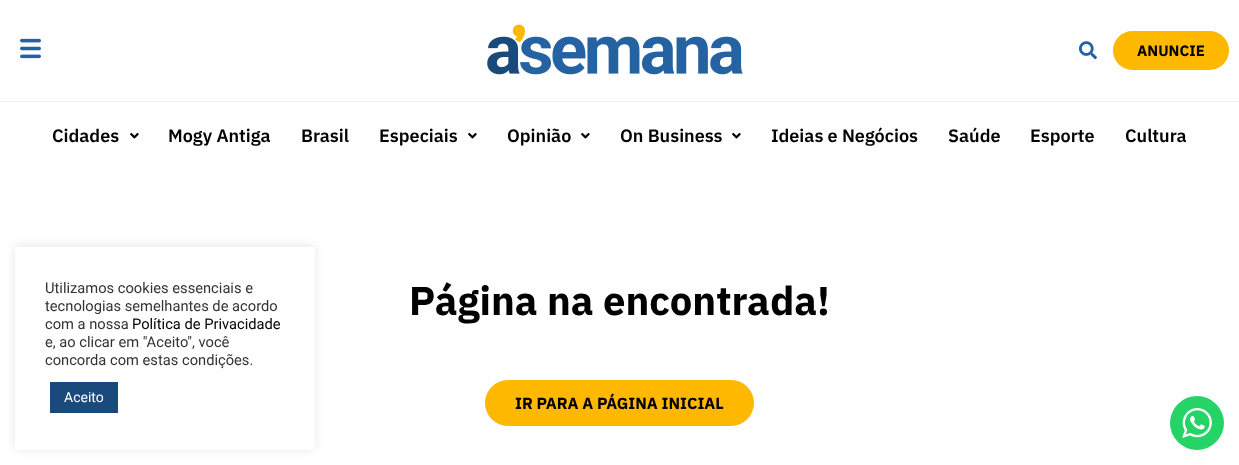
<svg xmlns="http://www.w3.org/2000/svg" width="1239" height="465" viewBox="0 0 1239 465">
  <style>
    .t1 { font: bold 15px IBM Plex Sans; fill: #000; }
    .t2 { font: 600 18px IBM Plex Sans; fill: #000; }
    .t3 { font: bold 40px IBM Plex Sans; fill: #000; }
    .t4 { font: bold 16px IBM Plex Sans; fill: #000; }
    .t5 { font: 14.7px Roboto; fill: #333; }
    .t6 { font: 14.7px Roboto; fill: #000; }
    .t7 { font: 14px Roboto; fill: #fff; }
  </style>
  <defs>
    <clipPath id="clip1"><path d="M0 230H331V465H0ZM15 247H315V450H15Z" clip-rule="evenodd"/></clipPath>
  </defs>
  <rect width="100%" height="100%" fill="#fff"/>
  <rect x="0" y="101" width="1239" height="1" fill="#eee"/>
  <image x="20" y="38" width="21" height="21" href="images/1.png"/>
  <image x="487" y="24" width="256" height="51" href="images/2.png"/>
  <image x="1079" y="41" width="18" height="19" href="images/3.png"/>
  <rect x="1113" y="31" width="116" height="39" rx="19.5" fill="#ffb800"/>
  <text x="1137" y="56" class="t1">ANUNCIE</text>
  <text x="52" y="142" class="t2">Cidades</text>
  <image x="130" y="133" width="9" height="6" href="images/4.png"/>
  <text x="168" y="142" class="t2">Mogy Antiga</text>
  <text x="301" y="142" class="t2">Brasil</text>
  <text x="379" y="142" class="t2">Especiais</text>
  <image x="468" y="133" width="9" height="6" href="images/4.png"/>
  <text x="507" y="142" class="t2">Opinião</text>
  <image x="581" y="133" width="9" height="6" href="images/4.png"/>
  <text x="620" y="142" class="t2">On Business</text>
  <image x="732" y="133" width="9" height="6" href="images/4.png"/>
  <text x="771" y="142" class="t2">Ideias e Negócios</text>
  <text x="948" y="142" class="t2">Saúde</text>
  <text x="1030" y="142" class="t2">Esporte</text>
  <text x="1125" y="142" class="t2">Cultura</text>
  <text x="409" y="315" class="t3">Página na encontrada!</text>
  <rect x="485" y="380" width="269" height="46" rx="23" fill="#ffb800"/>
  <text x="515" y="409" class="t4">IR PARA A PÁGINA INICIAL</text>
  <g clip-path="url(#clip1)">
    <rect x="15" y="246" width="300" height="203" fill="#acabab4d" filter="blur(5px)"/>
  </g>
  <text x="45" y="293" class="t5">Utilizamos cookies essenciais e</text>
  <text x="45" y="311" class="t5">tecnologias semelhantes de acordo</text>
  <text x="45" y="329" class="t5">com a nossa</text>
  <text x="132" y="329" class="t6">Política de Privacidade</text>
  <text x="45" y="347" class="t5">e, ao clicar em "Aceito", você</text>
  <text x="45" y="365" class="t5">concorda com estas condições.</text>
  <rect x="50" y="382" width="68" height="31" fill="#1a4a7b"/>
  <text x="64" y="402" class="t7">Aceito</text>
  <circle cx="1197" cy="423" r="27" fill="#25d366"/>
  <image x="1182" y="408" width="30" height="30" href="images/5.png"/>
</svg>
